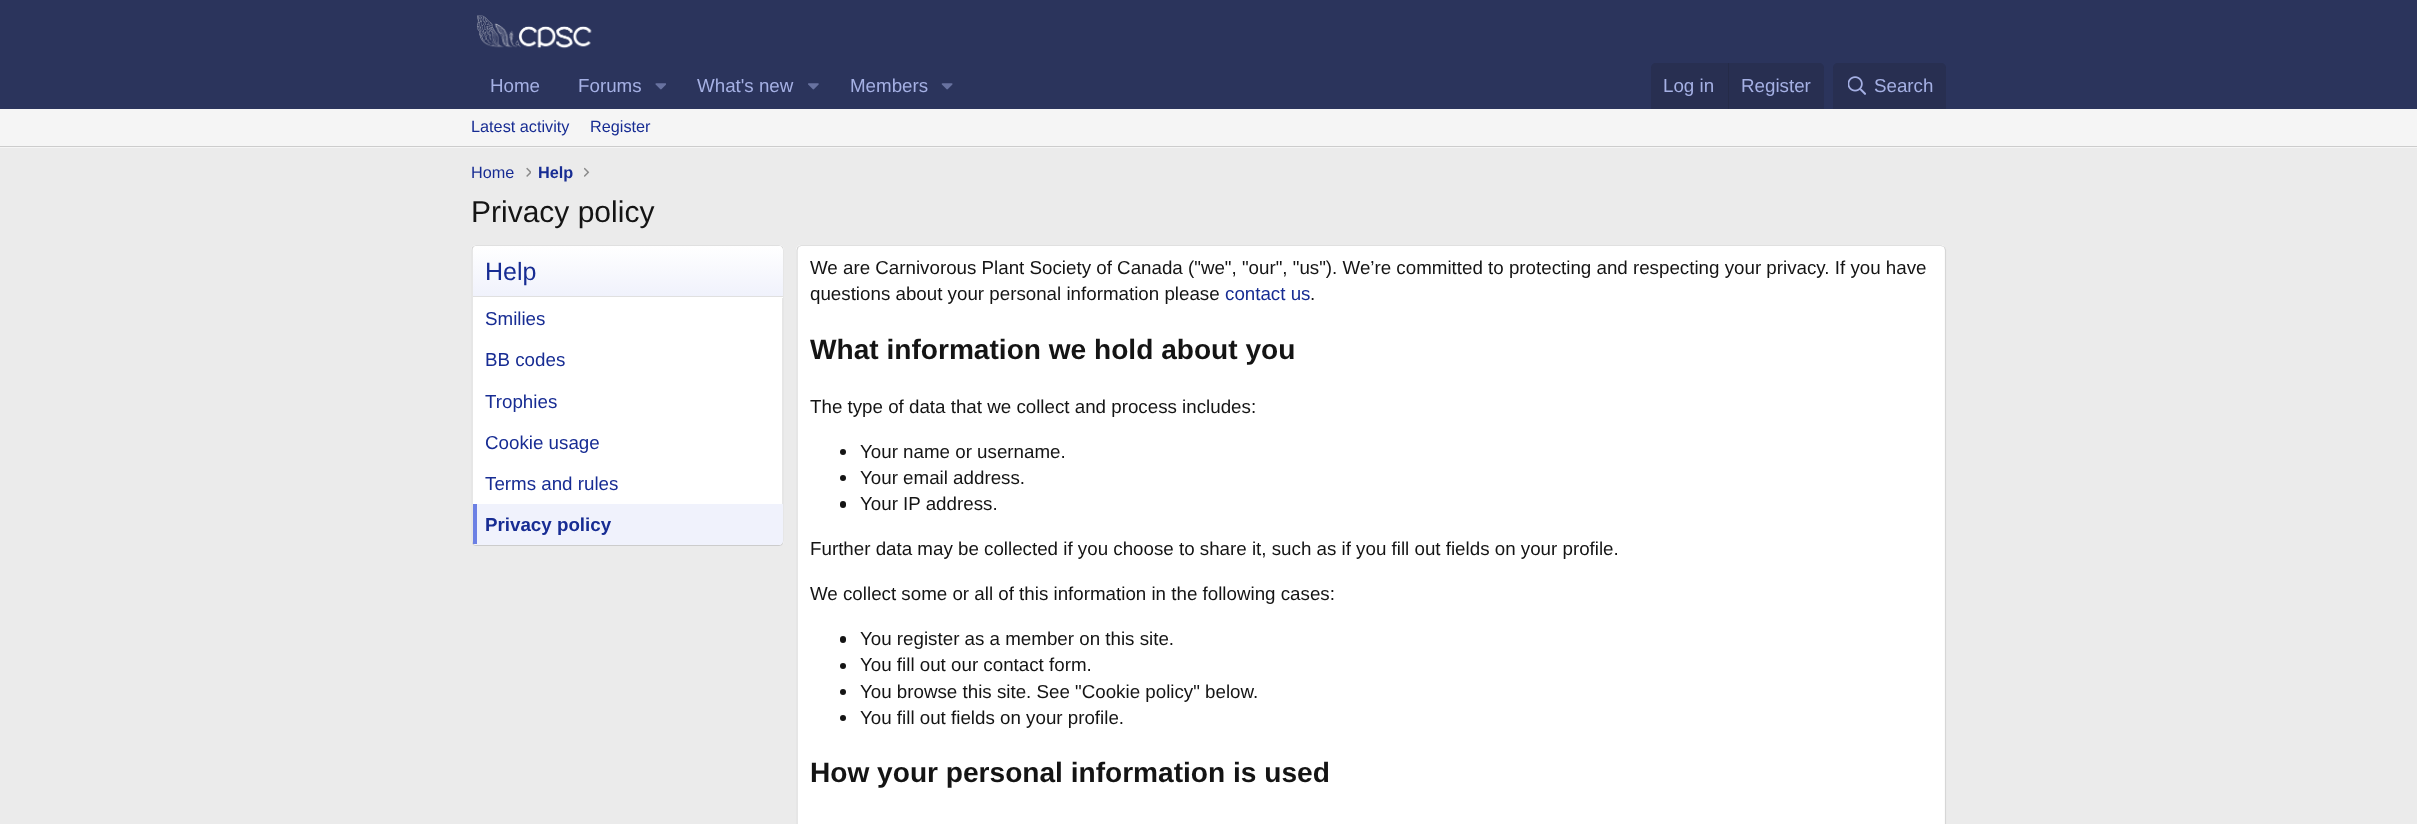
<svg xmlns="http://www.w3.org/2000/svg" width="2417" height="824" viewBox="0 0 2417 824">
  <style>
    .t1 { font: 18.75px Liberation Sans; fill: #a5b0e4; }
    .t2 { font: 16.25px Liberation Sans; fill: #172c93; }
    .t3 { font: bold 16.25px Liberation Sans; fill: #172c93; }
    .t4 { font: 30px Liberation Sans; fill: #141414; }
    .t5 { font: 25px Liberation Sans; fill: #172c93; }
    .t6 { font: 18.75px Liberation Sans; fill: #172c93; }
    .t7 { font: bold 18.75px Liberation Sans; fill: #172c93; }
    .t8 { font: 18.75px Liberation Sans; fill: #141414; }
    .t9 { font: bold 28.1px Liberation Sans; fill: #141414; }
  </style>
  <defs>
    <linearGradient id="g1" gradientUnits="userSpaceOnUse" x1="628" y1="296" x2="628" y2="246"><stop offset="0" stop-color="#f0f2fc"/><stop offset="1" stop-color="#fff"/></linearGradient>
    <linearGradient id="g2" gradientUnits="userSpaceOnUse" x1="628" y1="346" x2="628" y2="296"><stop offset="0" stop-color="#f0f2fc"/><stop offset="1" stop-color="#fff"/></linearGradient>
  </defs>
  <rect width="100%" height="100%" fill="#ebebeb"/>
  <rect x="0" y="0" width="2417" height="109" fill="#2b345c"/>
  <image x="477" y="15" width="115" height="34" href="images/1.png"/>
  <text x="490" y="92" class="t1">Home</text>
  <text x="578" y="92" class="t1">Forums</text>
  <image x="655" y="83" width="11" height="7" href="images/2.png"/>
  <text x="697" y="92" class="t1">What's new</text>
  <image x="808" y="83" width="11" height="7" href="images/3.png"/>
  <text x="850" y="92" class="t1">Members</text>
  <image x="941" y="83" width="12" height="7" href="images/4.png"/>
  <path d="M1656 63H1819C1822 63 1824 65 1824 68V109H1651V68C1651 65 1653 63 1656 63Z" fill="#282f51"/>
  <text x="1663" y="92" class="t1">Log in</text>
  <rect x="1728" y="63" width="1" height="46" fill="#252b48"/>
  <text x="1741" y="92" class="t1">Register</text>
  <path d="M1838 63H1941C1944 63 1946 65 1946 68V109H1833V68C1833 65 1835 63 1838 63Z" fill="#282f51"/>
  <image x="1848" y="76" width="18" height="19" href="images/5.png"/>
  <text x="1874" y="92" class="t1">Search</text>
  <rect x="0" y="109" width="2417" height="39" fill="#f5f5f5"/>
  <rect x="0" y="146" width="2417" height="1" fill="#ccc"/>
  <text x="471" y="132" class="t2">Latest activity</text>
  <text x="590" y="132" class="t2">Register</text>
  <text x="471" y="178" class="t2">Home</text>
  <image x="526" y="167" width="5" height="10" href="images/6.png"/>
  <text x="538" y="178" class="t3">Help</text>
  <image x="584" y="167" width="6" height="10" href="images/7.png"/>
  <text x="471" y="222" class="t4">Privacy policy</text>
  <rect x="471" y="245" width="313" height="301" rx="5" fill="#fff"/>
  <path d="M473 247C474 246 475 245.5 476 245.5H779C780 245.5 781 246 782 247" fill="none" stroke="#e0e0e0" stroke-width="1.2"/>
  <path d="M782 247C782.5 247.5 783 249 783 250V541C783 542.5 782.5 543.5 782 544.5" fill="none" stroke="#d6d6d6" stroke-width="1.2"/>
  <path d="M782 544.5C781 545 780 545.5 779 545.5H476C475 545.5 474 545 473 544.5" fill="none" stroke="#ccc" stroke-width="1.2"/>
  <path d="M473 544.5C472.5 543.5 472 542.5 472 541V250C472 249 472.5 247.5 473 247" fill="none" stroke="#d6d6d6" stroke-width="1.2"/>
  <path d="M477 246H779C781 246 783 248 783 250V296H473V250C473 248 475 246 477 246Z" fill="url(#g1)"/>
  <rect x="782" y="297" width="1" height="1" fill="url(#g2)"/>
  <rect x="473" y="296" width="310" height="1" fill="#e0e0e0"/>
  <text x="485" y="280" class="t5">Help</text>
  <text x="485" y="325" class="t6">Smilies</text>
  <text x="485" y="366" class="t6">BB codes</text>
  <text x="485" y="408" class="t6">Trophies</text>
  <text x="485" y="449" class="t6">Cookie usage</text>
  <text x="485" y="490" class="t6">Terms and rules</text>
  <path d="M473 504H783V541C783 543 781 545 779 545H477C475 545 473 543 473 541Z" fill="#f0f2fc"/>
  <rect x="473" y="504" width="4" height="40" fill="#6c80e4"/>
  <text x="485" y="531" class="t7">Privacy policy</text>
  <rect x="796" y="245" width="1150" height="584" rx="5" fill="#fff"/>
  <path d="M798 247L801 245.5H1941L1944.5 247" fill="none" stroke="#e0e0e0" stroke-width="1.2"/>
  <path d="M1944.5 247L1945.5 250V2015L1944.5 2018" fill="none" stroke="#d6d6d6" stroke-width="1.2"/>
  <path d="M798 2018L797 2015V250L798 247" fill="none" stroke="#d6d6d6" stroke-width="1.2"/>
  <text x="810" y="274" class="t8">We are Carnivorous Plant Society of Canada ("we", "our", "us"). We’re committed to protecting and respecting your privacy. If you have</text>
  <text x="810" y="300" class="t8">questions about your personal information please</text>
  <text x="1225" y="300" class="t6">contact us</text>
  <text x="1310" y="300" class="t8">.</text>
  <text x="810" y="359" class="t9">What information we hold about you</text>
  <text x="810" y="413" class="t8">The type of data that we collect and process includes:</text>
  <circle cx="843" cy="452" r="3" fill="#141414"/>
  <text x="860" y="458" class="t8">Your name or username.</text>
  <circle cx="843" cy="478" r="3" fill="#141414"/>
  <text x="860" y="484" class="t8">Your email address.</text>
  <rect x="840" y="501" width="6" height="7" rx="3" fill="#141414"/>
  <text x="860" y="510" class="t8">Your IP address.</text>
  <text x="810" y="555" class="t8">Further data may be collected if you choose to share it, such as if you fill out fields on your profile.</text>
  <text x="810" y="600" class="t8">We collect some or all of this information in the following cases:</text>
  <rect x="840" y="636" width="6" height="7" rx="3" fill="#141414"/>
  <text x="860" y="645" class="t8">You register as a member on this site.</text>
  <circle cx="843" cy="666" r="3" fill="#141414"/>
  <text x="860" y="671" class="t8">You fill out our contact form.</text>
  <circle cx="843" cy="692" r="3" fill="#141414"/>
  <text x="860" y="698" class="t8">You browse this site. See "Cookie policy" below.</text>
  <circle cx="843" cy="718" r="3" fill="#141414"/>
  <text x="860" y="724" class="t8">You fill out fields on your profile.</text>
  <text x="810" y="782" class="t9">How your personal information is used</text>
</svg>
